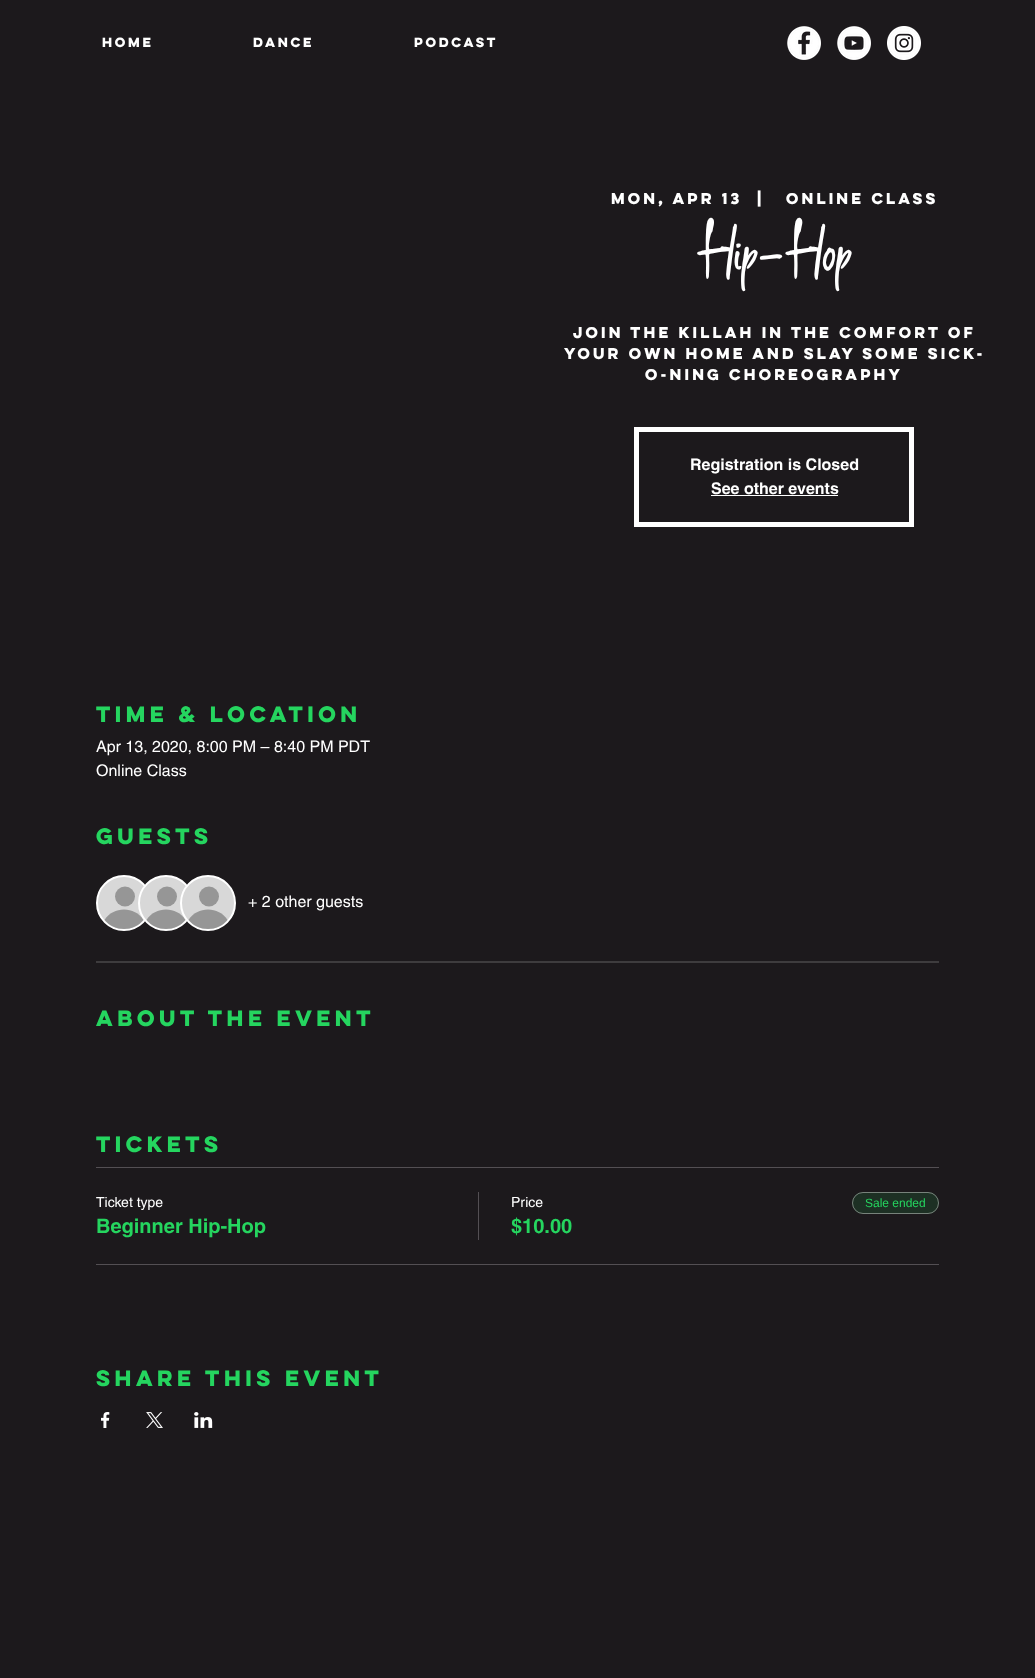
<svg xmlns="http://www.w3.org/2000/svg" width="1035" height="1678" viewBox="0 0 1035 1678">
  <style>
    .t1 { font: bold 12px 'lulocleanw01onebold'; fill: #fff; }
    .t2 { font: bold 14px 'lulocleanw01onebold'; fill: #fff; }
    .t3 { font: 77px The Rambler; fill: #fff; }
    .t4 { font: bold 16px helvetica; fill: #fff; }
    .t5 { font: bold 20px 'lulocleanw01onebold'; fill: #25d55f; }
    .t6 { font: 16px helvetica; fill: #fff; }
    .t7 { font: 14px helvetica; fill: #fff; }
    .t8 { font: bold 20px helvetica; fill: #25d55f; }
    .t9 { font: 12px Liberation Sans; fill: #25d55f; }
  </style>
  <rect width="100%" height="100%" fill="#1c191c"/>
  <text x="102" y="47" class="t1">Home</text>
  <text x="253" y="47" class="t1">Dance</text>
  <text x="414" y="47" class="t1">Podcast</text>
  <image x="787" y="26" width="34" height="34" href="images/1.png"/>
  <image x="837" y="26" width="34" height="34" href="images/2.png"/>
  <image x="887" y="26" width="34" height="34" href="images/3.png"/>
  <text x="611" y="204" class="t2">Mon, Apr 13</text>
  <text x="757" y="204" class="t2">|</text>
  <text x="786" y="204" class="t2">Online Class</text>
  <text x="697" y="269" class="t3">Hip-Hop</text>
  <text x="573" y="338" class="t2">Join The Killah in the comfort of</text>
  <text x="564" y="359" class="t2">your own home and slay some sick-</text>
  <text x="645" y="380" class="t2">o-ning choreography</text>
  <rect x="636.5" y="429.5" width="275" height="95" fill="none" stroke="#fff" stroke-width="5"/>
  <text x="690" y="470" class="t4">Registration is Closed</text>
  <text x="711" y="494" class="t4">See other events</text>
  <rect x="711" y="495" width="127" height="1" fill="#fff"/>
  <text x="96" y="722" class="t5">Time &amp; Location</text>
  <text x="96" y="752" class="t6">Apr 13, 2020, 8:00 PM – 8:40 PM PDT</text>
  <text x="96" y="776" class="t6">Online Class</text>
  <text x="96" y="844" class="t5">Guests</text>
  <circle cx="124" cy="903" r="27" fill="#d8d8d8" stroke="#fff" stroke-width="2"/>
  <circle cx="125" cy="896.5" r="10" fill="#969696"/>
  <path d="M143.5 920C133.5 932 114.5 932 104.5 920C113 906 135 906 143.5 920Z" fill="#969696"/>
  <circle cx="166" cy="903" r="27" fill="#d8d8d8" stroke="#fff" stroke-width="2"/>
  <circle cx="167" cy="896.5" r="10" fill="#969696"/>
  <path d="M185.5 920C175.5 932 156.5 932 146.5 920C155 906 177 906 185.5 920Z" fill="#969696"/>
  <circle cx="208" cy="903" r="27" fill="#d8d8d8" stroke="#fff" stroke-width="2"/>
  <circle cx="209" cy="896.5" r="10" fill="#969696"/>
  <path d="M227.5 920C217.5 932 198.5 932 188.5 920C197 906 219 906 227.5 920Z" fill="#969696"/>
  <text x="248" y="907" class="t6">+ 2 other guests</text>
  <rect x="96" y="961" width="843" height="2" fill="#3e3c3e"/>
  <text x="96" y="1026" class="t5">About the Event</text>
  <text x="96" y="1152" class="t5">Tickets</text>
  <rect x="96" y="1167" width="843" height="1" fill="#534f53"/>
  <rect x="96" y="1264" width="843" height="1" fill="#534f53"/>
  <text x="96" y="1207" class="t7">Ticket type</text>
  <text x="96" y="1233" class="t8">Beginner Hip-Hop</text>
  <rect x="478" y="1192" width="1" height="48" fill="#534f53"/>
  <text x="511" y="1207" class="t7">Price</text>
  <text x="511" y="1233" class="t8">$10.00</text>
  <rect x="852" y="1192" width="87" height="22" rx="11" fill="#1d3024"/>
  <rect x="852.5" y="1192.5" width="86" height="21" rx="10.5" fill="none" stroke="#ffffff66"/>
  <text x="865" y="1207" class="t9">Sale ended</text>
  <text x="96" y="1386" class="t5">Share This Event</text>
  <image x="101" y="1412" width="9" height="16" href="images/4.png"/>
  <image x="146" y="1412" width="17" height="16" href="images/5.png"/>
  <image x="194" y="1412" width="19" height="16" href="images/6.png"/>
</svg>
